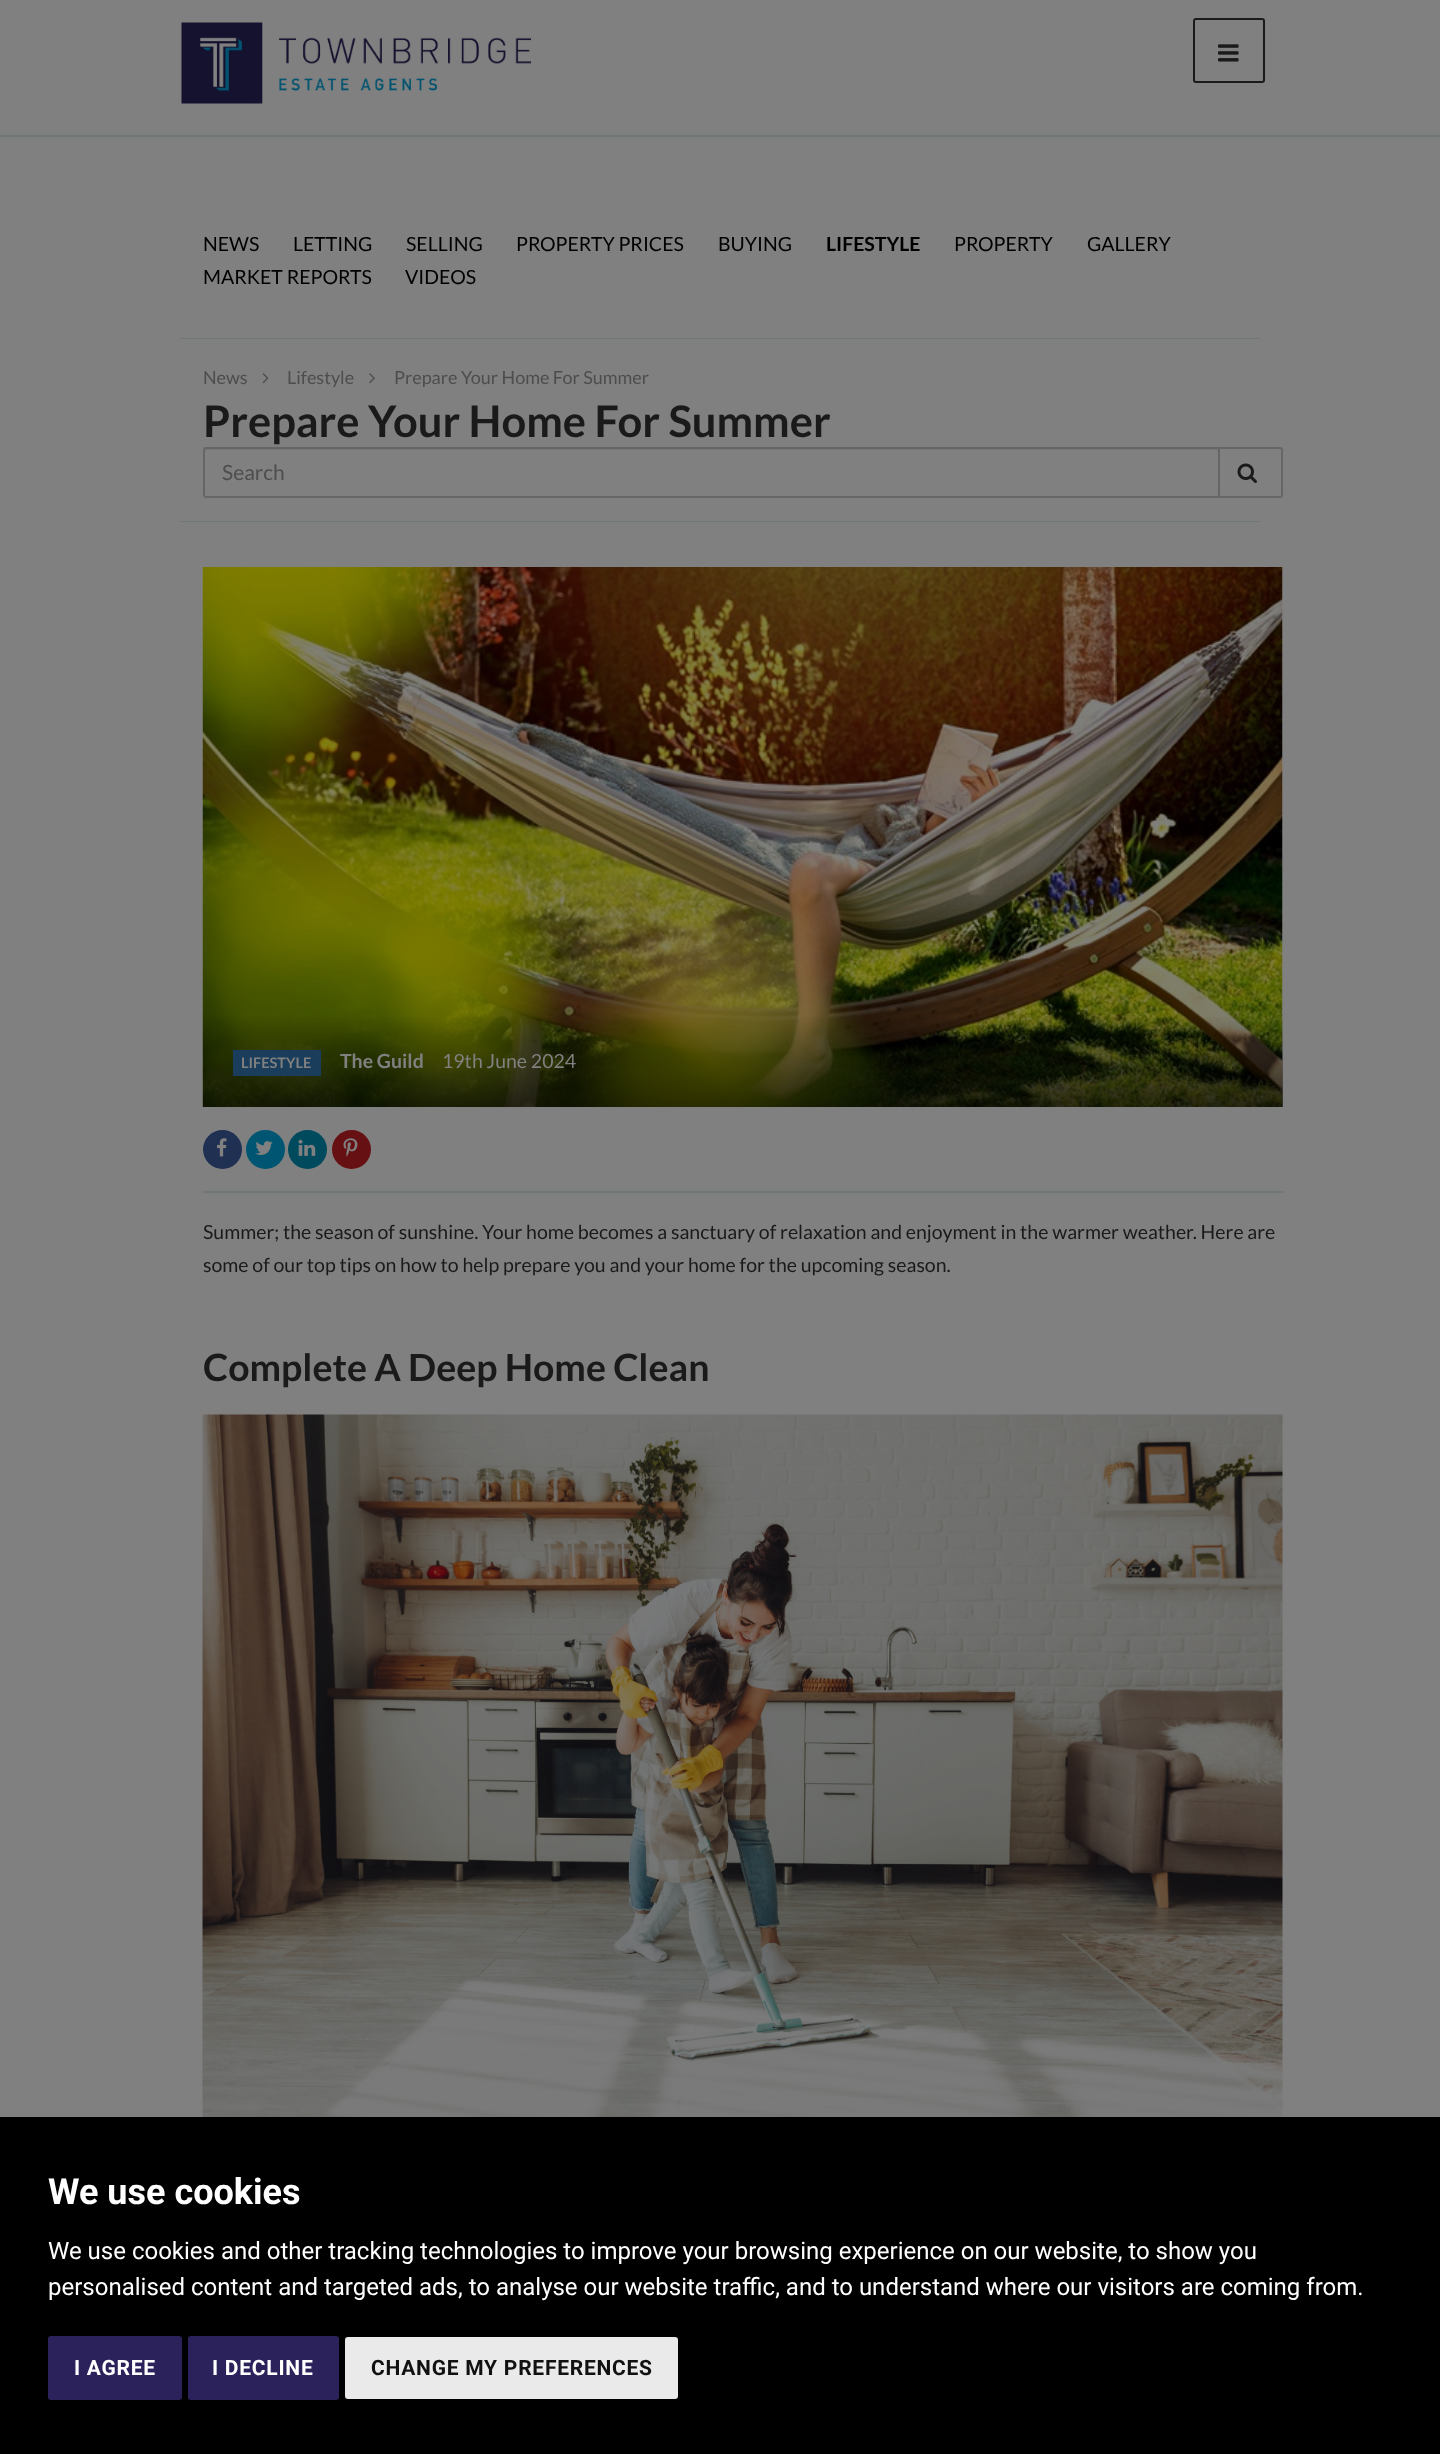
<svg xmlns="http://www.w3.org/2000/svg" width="1440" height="2454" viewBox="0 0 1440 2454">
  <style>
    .t1 { font: 19.5px Lato; fill: #000; }
    .t2 { font: bold 19.5px Lato; fill: #000; }
    .t3 { font: 18px Lato; fill: #4d4d4d; }
    .t4 { font: bold 43.5px Lato; fill: #1a1a1a; }
    .t5 { font: 21px Lato; fill: #4d4d4d; }
    .t6 { font: bold 14.5px Lato; fill: #808080; }
    .t7 { font: bold 19.5px Lato; fill: #808080; }
    .t8 { font: 19.5px Lato; fill: #808080; }
    .t9 { font: 19.5px Lato; fill: #1a1a1a; }
    .t10 { font: bold 37.5px Lato; fill: #1a1a1a; }
    .t11 { font: bold 36px Roboto; fill: #fff; }
    .t12 { font: 24px Roboto; fill: #fff; }
    .t13 { font: bold 21px Roboto; letter-spacing: 0.75px; fill: #fff; }
    .t14 { font: bold 21px Roboto; letter-spacing: 0.75px; fill: #111; }
  </style>
  <defs>
    <linearGradient id="g1" gradientUnits="userSpaceOnUse" x1="743" y1="1014" x2="743" y2="1107"><stop offset="0" stop-color="#000" stop-opacity="0"/><stop offset="1" stop-color="#000" stop-opacity="0.6"/></linearGradient>
  </defs>
  <rect width="100%" height="100%" fill="#808080"/>
  <rect x="0" y="135" width="1440" height="2" fill="#707777"/>
  <image x="181" y="22" width="350" height="82" href="images/1.png"/>
  <rect x="1194" y="19" width="70" height="63" rx="2" fill="none" stroke="#1a1a1a" stroke-width="2"/>
  <image x="1218" y="44" width="21" height="18" href="images/2.png"/>
  <rect x="180" y="338" width="1080" height="1" fill="#707777"/>
  <text x="203" y="251" class="t1">NEWS</text>
  <text x="293" y="251" class="t1">LETTING</text>
  <text x="406" y="251" class="t1">SELLING</text>
  <text x="516" y="251" class="t1">PROPERTY PRICES</text>
  <text x="718" y="251" class="t1">BUYING</text>
  <text x="826" y="251" class="t2">LIFESTYLE</text>
  <text x="954" y="251" class="t1">PROPERTY</text>
  <text x="1087" y="251" class="t1">GALLERY</text>
  <text x="203" y="284" class="t1">MARKET REPORTS</text>
  <text x="405" y="284" class="t1">VIDEOS</text>
  <rect x="180" y="521" width="1080" height="1" fill="#707777"/>
  <text x="203" y="384" class="t3">News</text>
  <image x="262" y="373" width="7" height="11" href="images/3.png"/>
  <text x="287" y="384" class="t3">Lifestyle</text>
  <image x="369" y="373" width="6" height="11" href="images/4.png"/>
  <text x="394" y="384" class="t3">Prepare Your Home For Summer</text>
  <text x="203" y="437" class="t4">Prepare Your Home For Summer</text>
  <path d="M206 450H1216C1217 450 1218 451 1218 452C1218 451 1218 449 1216 449H206C204 449 204 451 204 452C204 451 205 450 206 450Z" fill="#767676"/>
  <rect x="204" y="448" width="1015" height="49" rx="2" fill="none" stroke="#666" stroke-width="2"/>
  <text x="222" y="480" class="t5">Search</text>
  <path d="M1219 448H1280C1281 448 1282 449 1282 450V495C1282 496 1281 497 1280 497H1219Z" fill="#808080" stroke="#666" stroke-width="2"/>
  <image x="1237" y="463" width="20" height="20" href="images/5.png"/>
  <image x="202" y="567" width="1081" height="540" href="images/6.png"/>
  <rect x="203" y="1017" width="1080" height="90" fill="url(#g1)"/>
  <rect x="233" y="1050" width="88" height="26" fill="#1a3d5c"/>
  <text x="241" y="1068" class="t6">LIFESTYLE</text>
  <text x="340" y="1068" class="t7">The Guild</text>
  <text x="442" y="1068" class="t8">19th June 2024</text>
  <circle cx="222.5" cy="1149.5" r="19.5" fill="#203053"/>
  <image x="217" y="1138" width="10" height="19" href="images/7.png"/>
  <circle cx="265.5" cy="1149.5" r="19.5" fill="#005672"/>
  <image x="255" y="1141" width="18" height="14" href="images/8.png"/>
  <circle cx="307.5" cy="1149.5" r="19.5" fill="#004a5e"/>
  <image x="298" y="1139" width="18" height="17" href="images/9.png"/>
  <circle cx="351.5" cy="1149.5" r="19.5" fill="#661014"/>
  <image x="343" y="1138" width="15" height="19" href="images/10.png"/>
  <rect x="203" y="1191" width="1080" height="2" fill="#707777"/>
  <text x="203" y="1239" class="t9">Summer; the season of sunshine. Your home becomes a sanctuary of relaxation and enjoyment in the warmer weather. Here are</text>
  <text x="203" y="1272" class="t9">some of our top tips on how to help prepare you and your home for the upcoming season.</text>
  <text x="203" y="1381" class="t10">Complete A Deep Home Clean</text>
  <image x="202" y="1414" width="1081" height="703" href="images/11.png"/>
  <rect x="0" y="2117" width="1440" height="337" fill="#000"/>
  <text x="48" y="2204" class="t11">We use cookies</text>
  <text x="48" y="2259" class="t12">We use cookies and other tracking technologies to improve your browsing experience on our website, to show you</text>
  <text x="48" y="2295" class="t12">personalised content and targeted ads, to analyse our website traffic, and to understand where our visitors are coming from.</text>
  <rect x="48" y="2336" width="134" height="64" rx="3" fill="#2c225b"/>
  <text x="74" y="2375" class="t13">I AGREE</text>
  <rect x="188" y="2336" width="151" height="64" rx="3" fill="#2c225b"/>
  <text x="212" y="2375" class="t13">I DECLINE</text>
  <rect x="345" y="2337" width="333" height="62" rx="3" fill="#eaeaea"/>
  <text x="371" y="2375" class="t14">CHANGE MY PREFERENCES</text>
</svg>
